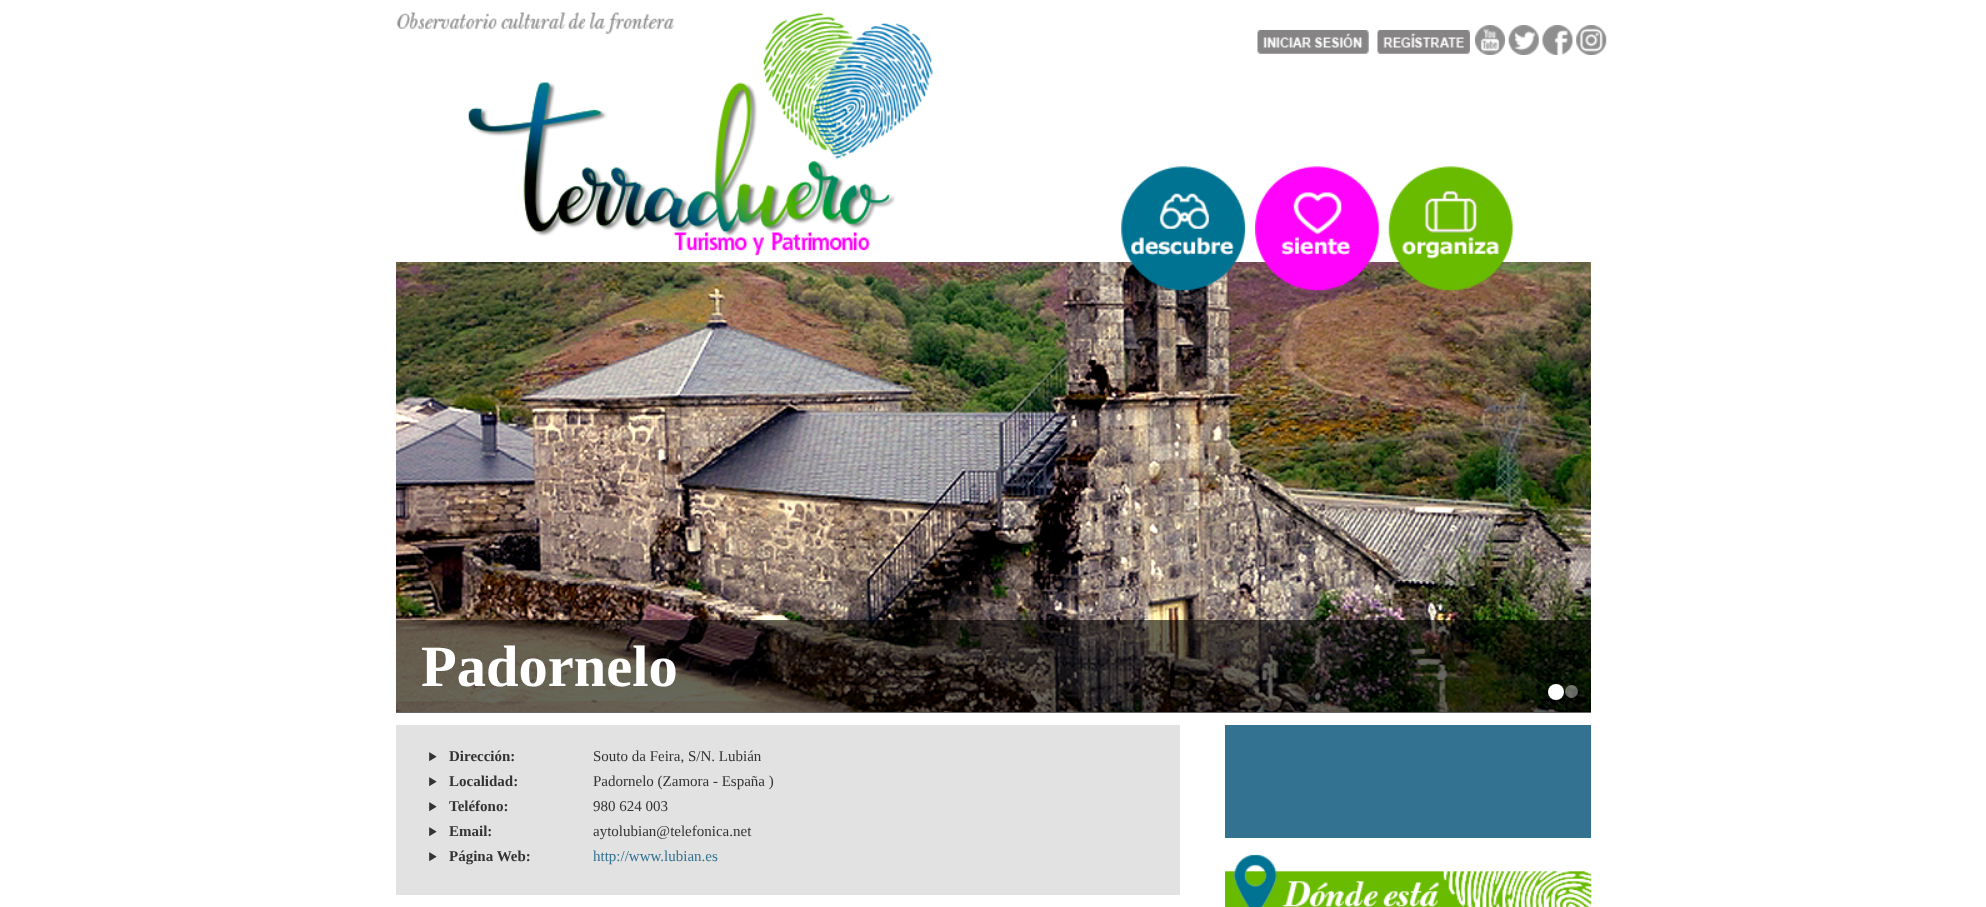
<svg xmlns="http://www.w3.org/2000/svg" width="1986" height="907" viewBox="0 0 1986 907">
  <style>
    .t1 { font: bold 58.5px Liberation Serif; fill: #fff; }
    .t2 { font: bold 15px Liberation Serif; fill: #333; }
    .t3 { font: 15px Liberation Serif; fill: #333; }
    .t4 { font: 15px Liberation Serif; fill: #337290; }
  </style>
  <rect width="100%" height="100%" fill="#fff"/>
  <image x="396" y="12" width="537" height="244" href="images/1.png"/>
  <image x="1257" y="30" width="112" height="24" href="images/2.png"/>
  <image x="1377" y="30" width="93" height="24" href="images/3.png"/>
  <image x="1475" y="25" width="30" height="30" href="images/4.png"/>
  <image x="1508" y="25" width="31" height="30" href="images/5.png"/>
  <image x="1542" y="25" width="31" height="30" href="images/6.png"/>
  <image x="1576" y="25" width="31" height="30" href="images/7.png"/>
  <image x="396" y="262" width="1195" height="450" href="images/11.png"/>
  <image x="1121" y="166" width="125" height="126" href="images/8.png"/>
  <image x="1255" y="166" width="124" height="126" href="images/9.png"/>
  <image x="1388" y="166" width="125" height="126" href="images/10.png"/>
  <rect x="396" y="620" width="1195" height="93" fill="#00000099"/>
  <text x="421" y="686" class="t1">Padornelo</text>
  <circle cx="1556" cy="692" r="8" fill="#fff"/>
  <circle cx="1571.5" cy="691.5" r="6.5" fill="#f5f5f566"/>
  <rect x="396" y="725" width="784" height="170" fill="#e2e2e2"/>
  <image x="429" y="752" width="8" height="9" href="images/12.png"/>
  <text x="449" y="761" class="t2">Dirección:</text>
  <text x="593" y="761" class="t3">Souto da Feira, S/N. Lubián</text>
  <image x="429" y="777" width="8" height="9" href="images/12.png"/>
  <text x="449" y="786" class="t2">Localidad:</text>
  <text x="593" y="786" class="t3">Padornelo (Zamora - España )</text>
  <image x="429" y="802" width="8" height="9" href="images/12.png"/>
  <text x="449" y="811" class="t2">Teléfono:</text>
  <text x="593" y="811" class="t3">980 624 003</text>
  <image x="429" y="827" width="8" height="9" href="images/12.png"/>
  <text x="449" y="836" class="t2">Email:</text>
  <text x="593" y="836" class="t3">aytolubian@telefonica.net</text>
  <image x="429" y="852" width="8" height="9" href="images/12.png"/>
  <text x="449" y="861" class="t2">Página Web:</text>
  <text x="593" y="861" class="t4">http://www.lubian.es</text>
  <rect x="1225" y="725" width="366" height="113" fill="#337290"/>
  <image x="1225" y="854" width="367" height="53" href="images/13.png"/>
</svg>
